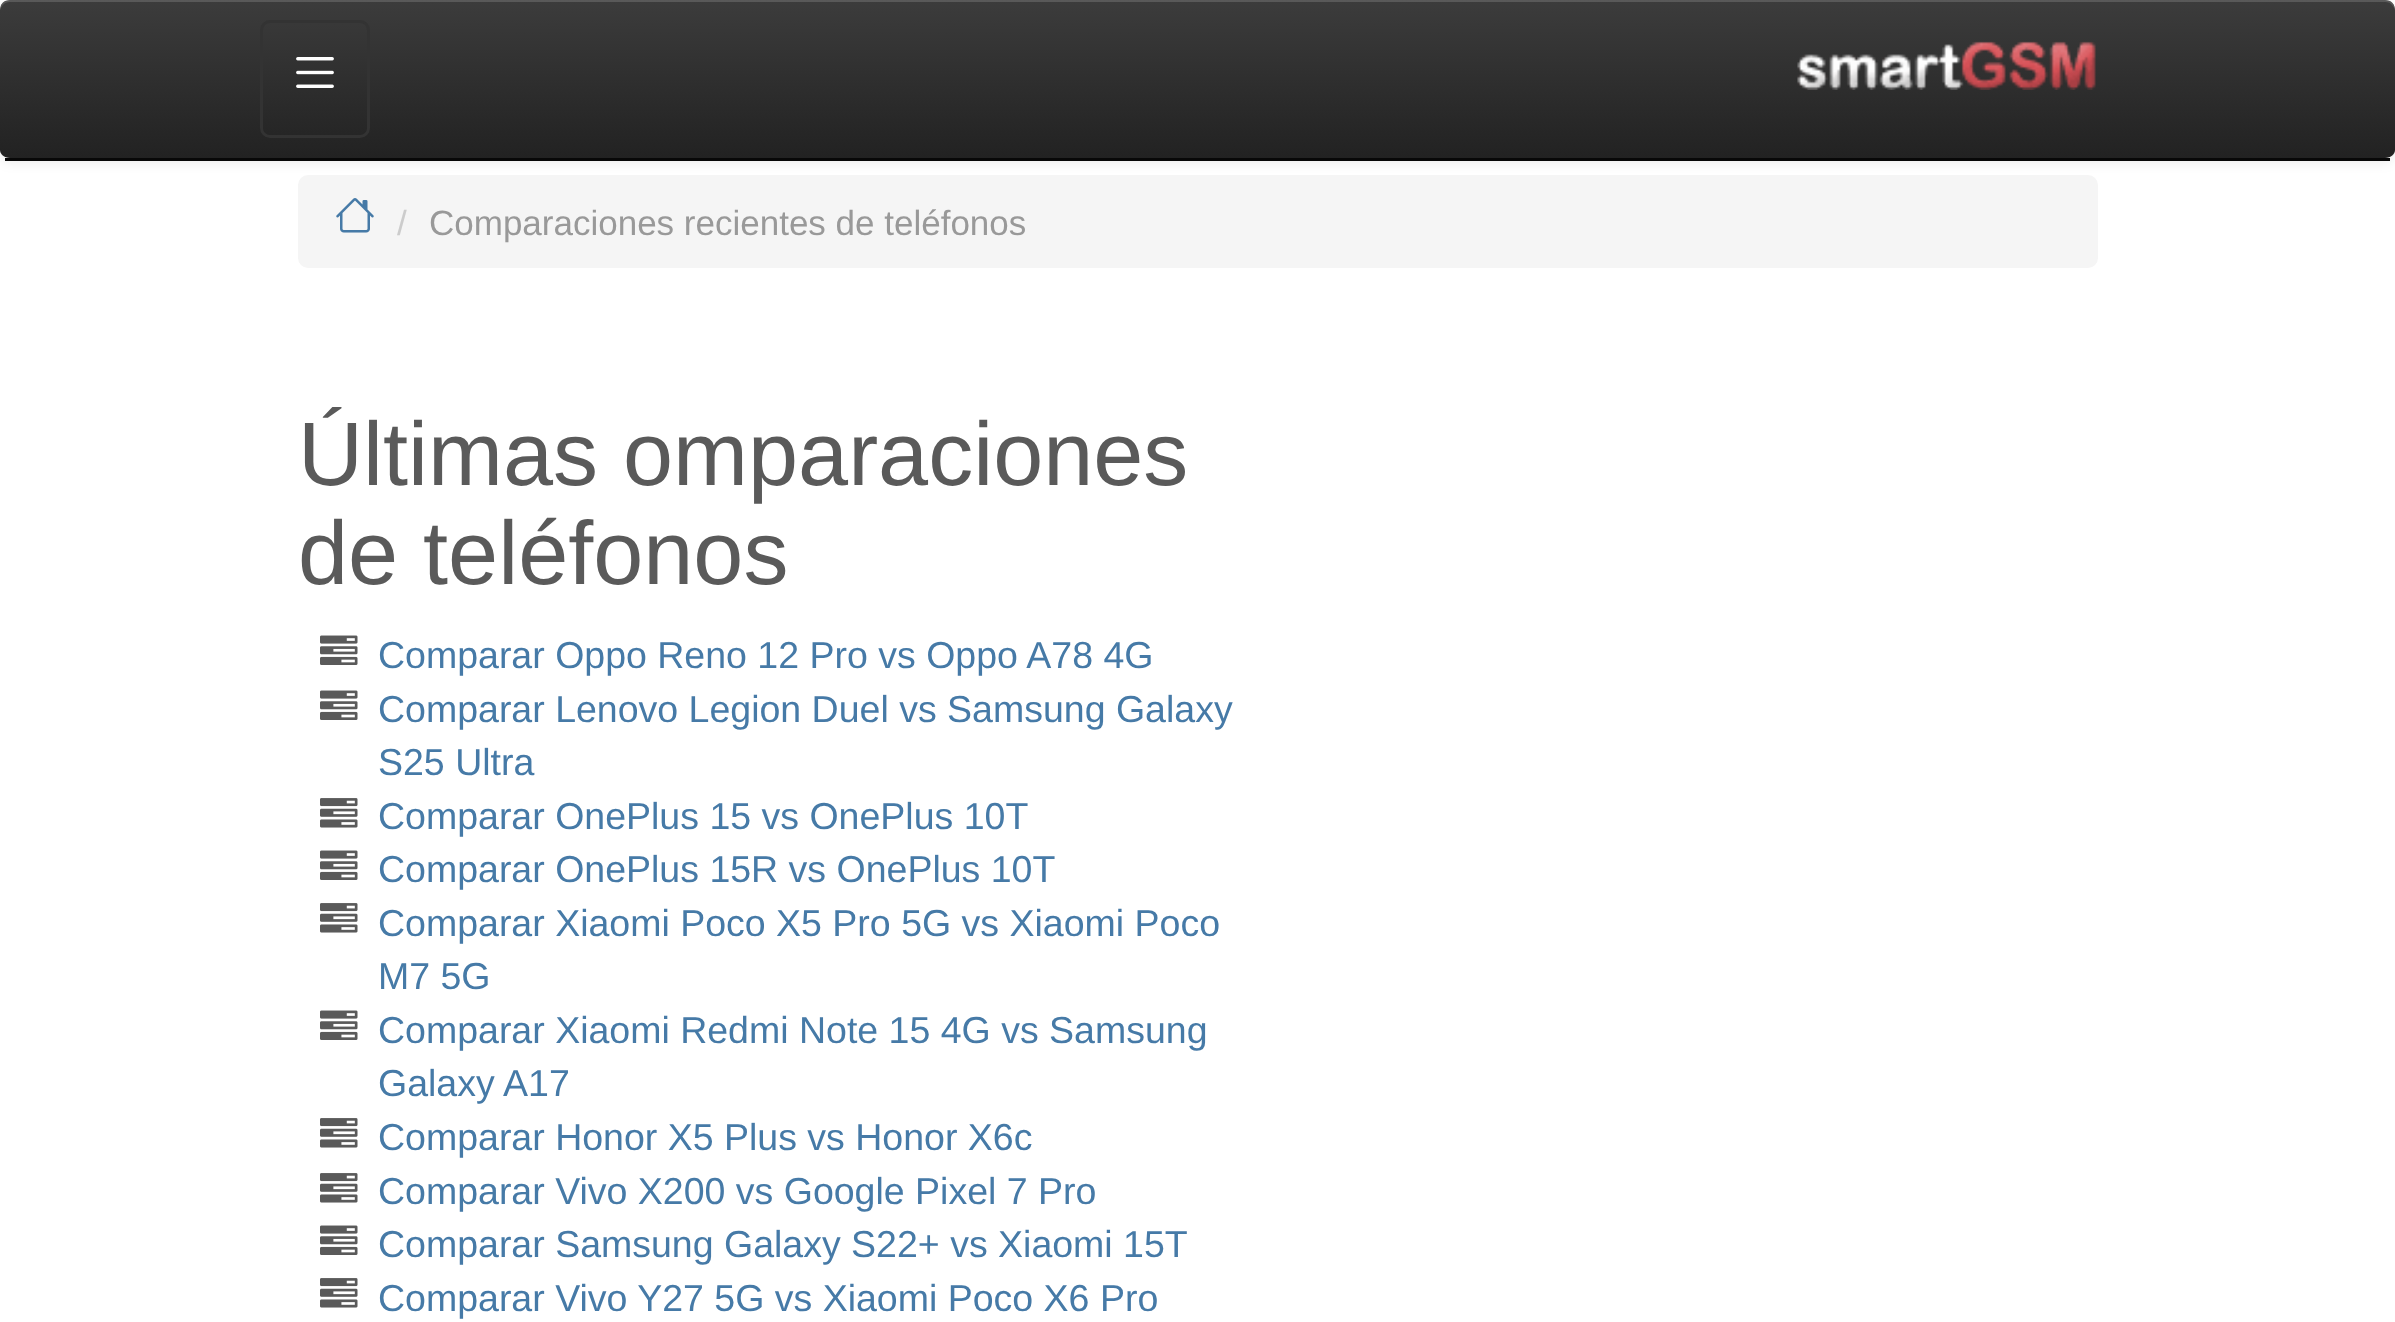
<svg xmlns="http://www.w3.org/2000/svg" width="2395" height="1322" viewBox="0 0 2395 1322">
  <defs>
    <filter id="blur1" x="-50%" y="-200%" width="200%" height="500%"><feGaussianBlur stdDeviation="6"/></filter>
    <linearGradient id="g1" gradientUnits="userSpaceOnUse" x1="1198" y1="0" x2="1198" y2="158"><stop offset="0" stop-color="#3c3c3c"/><stop offset="1" stop-color="#222222"/></linearGradient>
  </defs>
  <rect width="100%" height="100%" fill="#ffffff"/>
  <rect x="298" y="175" width="1800" height="93" rx="10" fill="#f5f5f5"/>
  <rect x="0" y="3" width="2395" height="160" rx="10" fill="#000000" fill-opacity="0.07" filter="url(#blur1)"/>
  <path d="M10 0H2385C2391 0 2395 4 2395 10V150C2395 154 2391 158 2385 158H10C4 158 0 154 0 150V10C0 4 4 0 10 0Z" fill="url(#g1)"/>
  <path d="M10 2H2385C2391 2 2395 7 2395 12C2395 6 2392 0 2385 0H10C3 0 0 6 0 12C0 7 4 2 10 2Z" fill="#ffffff" fill-opacity="0.15"/>
  <rect x="5" y="158" width="2385" height="3" fill="#080808"/>
  <rect x="261.5" y="21.5" width="107" height="115" rx="8.5" fill="none" stroke="#333333" stroke-width="3"/>
  <image x="296" y="57" width="38" height="31" href="img1.png"/>
  <image x="1797" y="41" width="299" height="49" href="img2.png"/>
  <image x="336" y="198" width="38" height="35" href="img3.png"/>
  <text x="397" y="235" font-family="Liberation Sans" font-size="35" fill="#cccccc">/</text>
  <text x="429" y="235" font-family="Liberation Sans" font-size="35" fill="#999999">Comparaciones recientes de teléfonos</text>
  <text x="298" y="485" font-family="Liberation Sans" font-size="90" fill="#5a5a5a">Últimas omparaciones</text>
  <text x="298" y="584" font-family="Liberation Sans" font-size="90" fill="#5a5a5a">de teléfonos</text>
  <image x="320" y="635" width="38" height="30" href="img4.png"/>
  <text x="378" y="668" font-family="Liberation Sans" font-size="37.5" fill="#467aa7">Comparar Oppo Reno 12 Pro vs Oppo A78 4G</text>
  <image x="320" y="690" width="38" height="30" href="img4.png"/>
  <text x="378" y="722" font-family="Liberation Sans" font-size="37.5" fill="#467aa7">Comparar Lenovo Legion Duel vs Samsung Galaxy</text>
  <text x="378" y="775" font-family="Liberation Sans" font-size="37.5" fill="#467aa7">S25 Ultra</text>
  <image x="320" y="798" width="38" height="30" href="img5.png"/>
  <text x="378" y="829" font-family="Liberation Sans" font-size="37.5" fill="#467aa7">Comparar OnePlus 15 vs OnePlus 10T</text>
  <image x="320" y="850" width="38" height="30" href="img4.png"/>
  <text x="378" y="882" font-family="Liberation Sans" font-size="37.5" fill="#467aa7">Comparar OnePlus 15R vs OnePlus 10T</text>
  <image x="320" y="903" width="38" height="30" href="img5.png"/>
  <text x="378" y="936" font-family="Liberation Sans" font-size="37.5" fill="#467aa7">Comparar Xiaomi Poco X5 Pro 5G vs Xiaomi Poco</text>
  <text x="378" y="989" font-family="Liberation Sans" font-size="37.5" fill="#467aa7">M7 5G</text>
  <image x="320" y="1010" width="38" height="30" href="img4.png"/>
  <text x="378" y="1043" font-family="Liberation Sans" font-size="37.5" fill="#467aa7">Comparar Xiaomi Redmi Note 15 4G vs Samsung</text>
  <text x="378" y="1096" font-family="Liberation Sans" font-size="37.5" fill="#467aa7">Galaxy A17</text>
  <image x="320" y="1118" width="38" height="30" href="img5.png"/>
  <text x="378" y="1150" font-family="Liberation Sans" font-size="37.5" fill="#467aa7">Comparar Honor X5 Plus vs Honor X6c</text>
  <image x="320" y="1173" width="38" height="30" href="img5.png"/>
  <text x="378" y="1204" font-family="Liberation Sans" font-size="37.5" fill="#467aa7">Comparar Vivo X200 vs Google Pixel 7 Pro</text>
  <image x="320" y="1225" width="38" height="30" href="img4.png"/>
  <text x="378" y="1257" font-family="Liberation Sans" font-size="37.5" fill="#467aa7">Comparar Samsung Galaxy S22+ vs Xiaomi 15T</text>
  <image x="320" y="1278" width="38" height="30" href="img5.png"/>
  <text x="378" y="1311" font-family="Liberation Sans" font-size="37.5" fill="#467aa7">Comparar Vivo Y27 5G vs Xiaomi Poco X6 Pro</text>
</svg>
